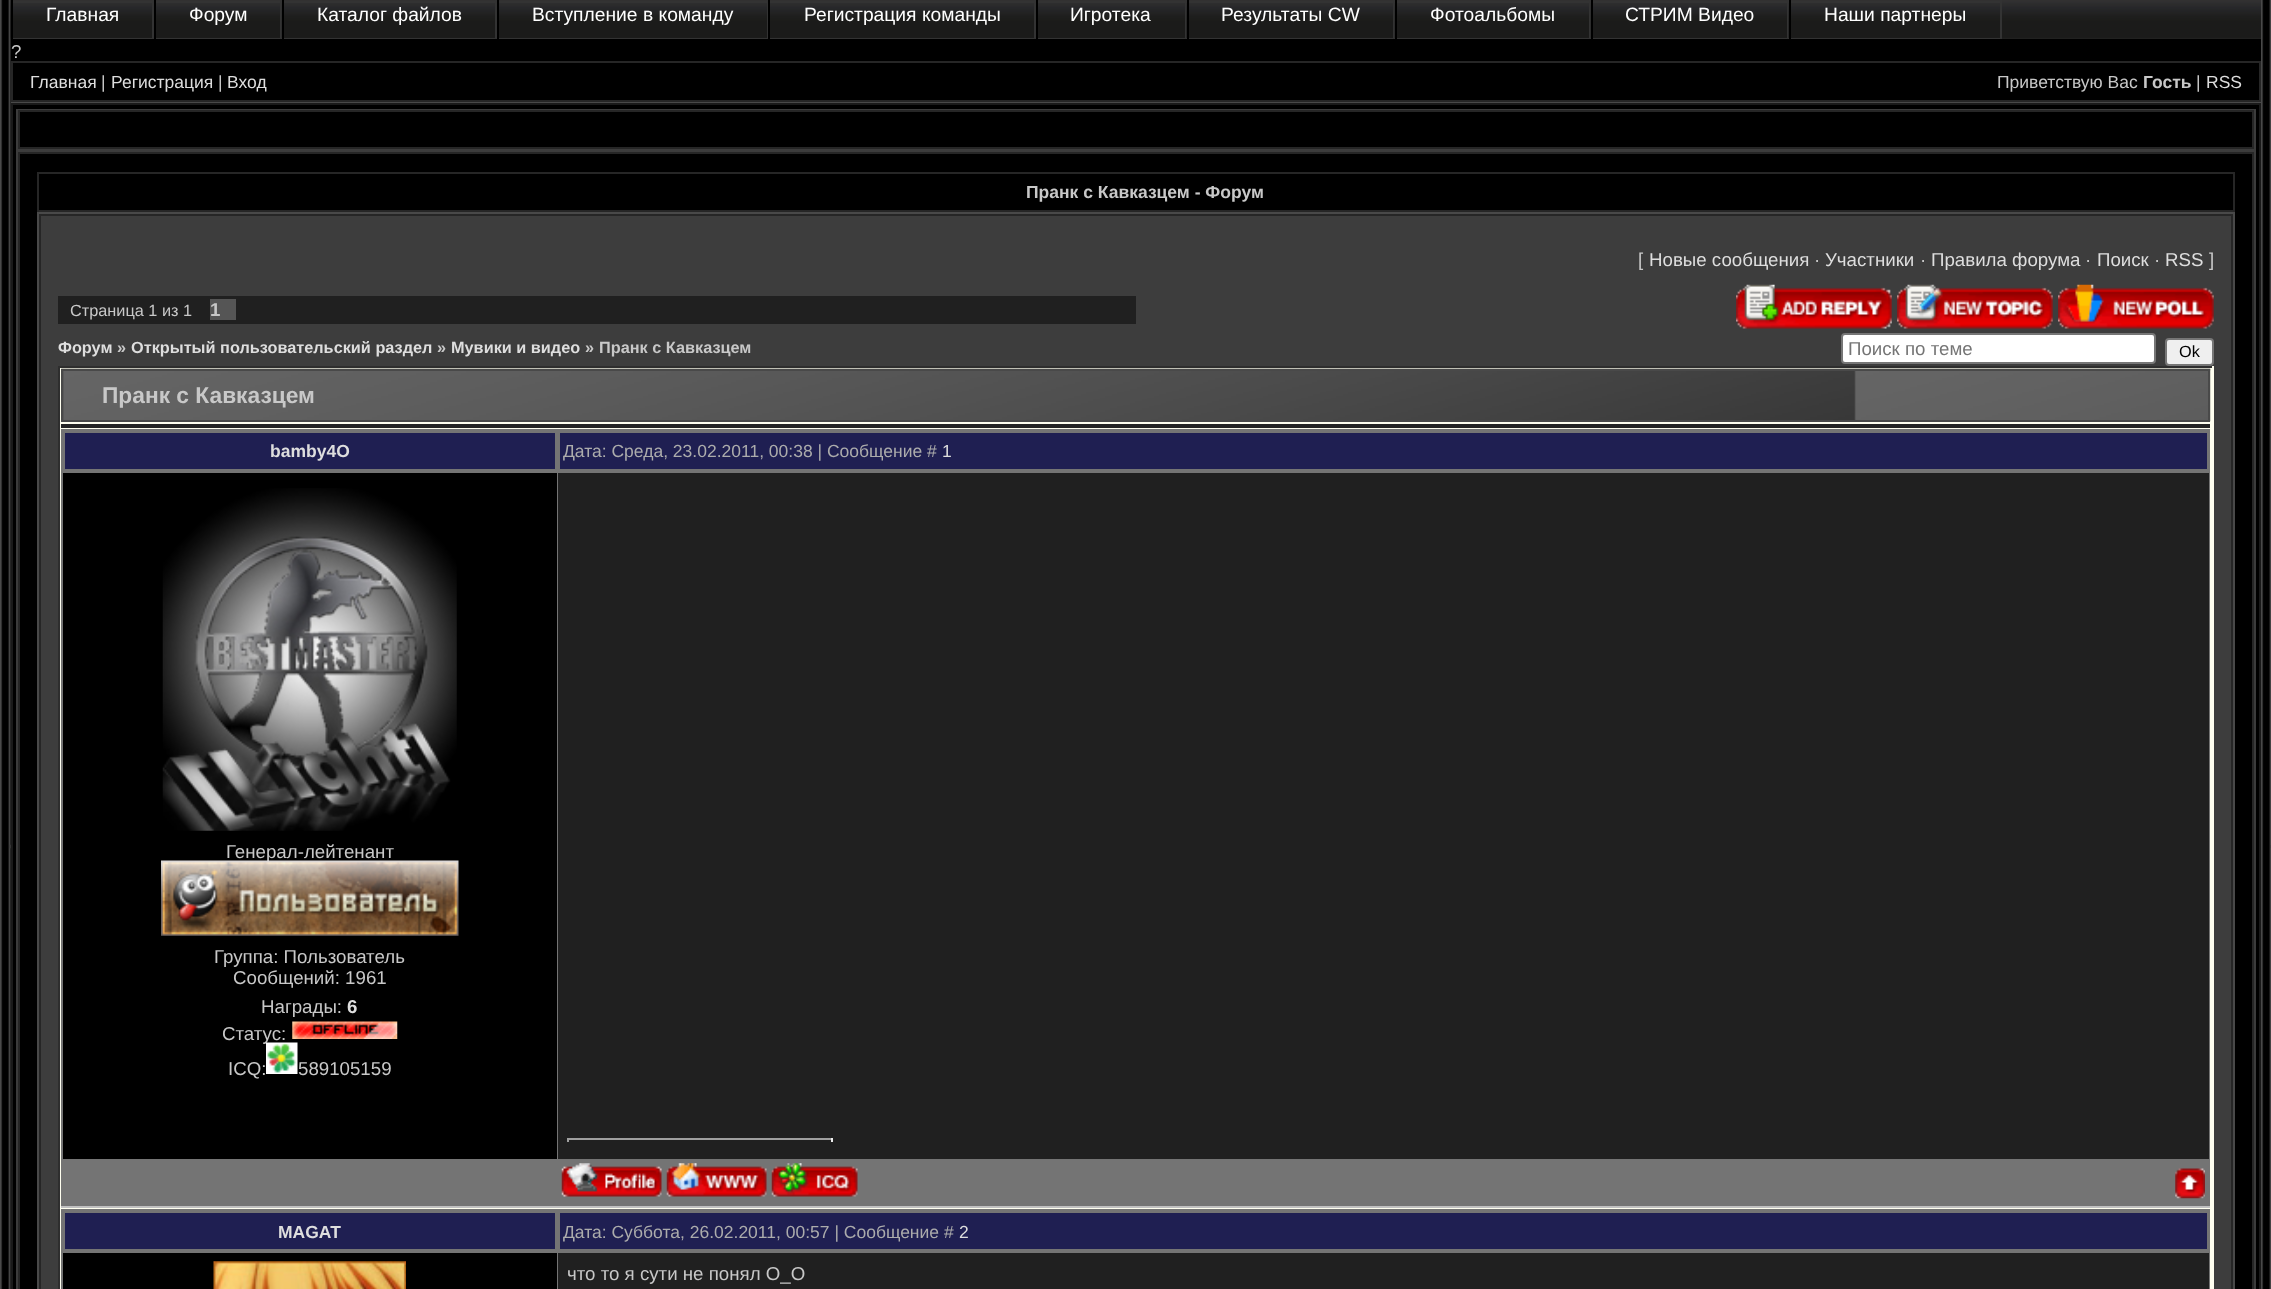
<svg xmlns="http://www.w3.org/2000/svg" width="2271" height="1289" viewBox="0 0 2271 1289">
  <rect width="100%" height="100%" fill="#000000"/>
  <image x="0" y="0" width="11" height="1289" href="img1.png"/>
  <image x="9" y="844" width="2" height="5" href="img2.png"/>
  <image x="10" y="0" width="2251" height="40" href="img3.png"/>
  <rect x="11" y="39" width="2250" height="1" fill="#000000"/>
  <rect x="13" y="1" width="139" height="38" fill="#333333"/>
  <image x="13" y="3" width="139" height="35" href="img4.png"/>
  <rect x="152" y="0" width="2" height="39" fill="#333333"/>
  <rect x="11" y="0" width="2" height="39" fill="#000000"/>
  <text x="46" y="21" font-family="Liberation Sans" font-size="19.25" fill="#ffffff">Главная</text>
  <rect x="156" y="1" width="124" height="38" fill="#333333"/>
  <image x="156" y="3" width="124" height="35" href="img5.png"/>
  <rect x="280" y="0" width="2" height="39" fill="#333333"/>
  <rect x="154" y="0" width="2" height="39" fill="#000000"/>
  <text x="189" y="21" font-family="Liberation Sans" font-size="19.25" fill="#ffffff">Форум</text>
  <rect x="284" y="1" width="211" height="38" fill="#333333"/>
  <image x="281" y="3" width="214" height="35" href="img6.png"/>
  <rect x="495" y="0" width="2" height="39" fill="#333333"/>
  <rect x="282" y="0" width="2" height="39" fill="#000000"/>
  <text x="317" y="21" font-family="Liberation Sans" font-size="19.25" fill="#ffffff">Каталог файлов</text>
  <rect x="499" y="1" width="268" height="38" fill="#333333"/>
  <image x="499" y="3" width="268" height="35" href="img7.png"/>
  <rect x="767" y="0" width="1" height="39" fill="#333333"/>
  <rect x="497" y="0" width="2" height="39" fill="#000000"/>
  <text x="532" y="21" font-family="Liberation Sans" font-size="19.25" fill="#ffffff">Вступление в команду</text>
  <rect x="770" y="1" width="264" height="38" fill="#333333"/>
  <image x="770" y="3" width="264" height="35" href="img8.png"/>
  <rect x="1034" y="0" width="2" height="39" fill="#333333"/>
  <rect x="768" y="0" width="2" height="39" fill="#000000"/>
  <text x="804" y="21" font-family="Liberation Sans" font-size="19.25" fill="#ffffff">Регистрация команды</text>
  <rect x="1038" y="1" width="147" height="38" fill="#333333"/>
  <image x="1038" y="3" width="147" height="35" href="img9.png"/>
  <rect x="1185" y="0" width="2" height="39" fill="#333333"/>
  <rect x="1036" y="0" width="2" height="39" fill="#000000"/>
  <text x="1070" y="21" font-family="Liberation Sans" font-size="19.25" fill="#ffffff">Игротека</text>
  <rect x="1189" y="1" width="204" height="38" fill="#333333"/>
  <image x="1186" y="3" width="207" height="35" href="img10.png"/>
  <rect x="1393" y="0" width="2" height="39" fill="#333333"/>
  <rect x="1187" y="0" width="2" height="39" fill="#000000"/>
  <text x="1221" y="21" font-family="Liberation Sans" font-size="19.25" fill="#ffffff">Результаты CW</text>
  <rect x="1397" y="1" width="192" height="38" fill="#333333"/>
  <image x="1394" y="3" width="195" height="35" href="img11.png"/>
  <rect x="1589" y="0" width="2" height="39" fill="#333333"/>
  <rect x="1395" y="0" width="2" height="39" fill="#000000"/>
  <text x="1430" y="21" font-family="Liberation Sans" font-size="19.25" fill="#ffffff">Фотоальбомы</text>
  <rect x="1593" y="1" width="194" height="38" fill="#333333"/>
  <image x="1590" y="3" width="197" height="35" href="img12.png"/>
  <rect x="1787" y="0" width="2" height="39" fill="#333333"/>
  <rect x="1591" y="0" width="2" height="39" fill="#000000"/>
  <text x="1625" y="21" font-family="Liberation Sans" font-size="19.25" fill="#ffffff">СТРИМ Видео</text>
  <rect x="1791" y="1" width="209" height="38" fill="#333333"/>
  <image x="1788" y="3" width="212" height="35" href="img13.png"/>
  <rect x="2000" y="0" width="2" height="39" fill="#333333"/>
  <rect x="1789" y="0" width="2" height="39" fill="#000000"/>
  <text x="1824" y="21" font-family="Liberation Sans" font-size="19.25" fill="#ffffff">Наши партнеры</text>
  <text x="11" y="58" font-family="Liberation Sans" font-size="18.7" fill="#c8c8c8">?</text>
  <rect x="12" y="62" width="2248" height="39" fill="none" stroke="#262626" stroke-width="2"/>
  <text x="30" y="88" font-family="Liberation Sans" font-size="17.5" fill="#dedede">Главная</text>
  <text x="101" y="88" font-family="Liberation Sans" font-size="17.5" fill="#c8c8c8">|</text>
  <text x="111" y="88" font-family="Liberation Sans" font-size="17.5" fill="#dedede">Регистрация</text>
  <text x="218" y="88" font-family="Liberation Sans" font-size="17.5" fill="#c8c8c8">|</text>
  <text x="227" y="88" font-family="Liberation Sans" font-size="17.5" fill="#dedede">Вход</text>
  <text x="1997" y="88" font-family="Liberation Sans" font-size="17.5" fill="#c8c8c8">Приветствую Вас</text>
  <text x="2143" y="88" font-family="Liberation Sans" font-size="17.5" font-weight="bold" fill="#c8c8c8">Гость</text>
  <text x="2196" y="88" font-family="Liberation Sans" font-size="17.5" fill="#c8c8c8">|</text>
  <text x="2206" y="88" font-family="Liberation Sans" font-size="17.5" fill="#dedede">RSS</text>
  <rect x="11" y="102" width="2250" height="1" fill="#494949"/>
  <rect x="12" y="104" width="2248" height="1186" fill="none" stroke="#1a1a1a" stroke-width="2"/>
  <rect x="17" y="110" width="2238" height="40" fill="none" stroke="#3c3c3c" stroke-width="2"/>
  <rect x="19" y="111" width="2234" height="37" fill="none" stroke="#262626" stroke-width="2"/>
  <rect x="17" y="152" width="2238" height="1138" fill="none" stroke="#3c3c3c" stroke-width="2"/>
  <rect x="19" y="153" width="2234" height="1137" fill="none" stroke="#262626" stroke-width="2"/>
  <rect x="38" y="173" width="2196" height="38" fill="none" stroke="#262626" stroke-width="2"/>
  <text x="1026" y="198" font-family="Liberation Sans" font-size="17.5" font-weight="bold" fill="#c8c8c8">Пранк с Кавказцем - Форум</text>
  <rect x="38" y="213" width="2196" height="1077" fill="none" stroke="#494949" stroke-width="2"/>
  <rect x="40" y="215" width="2192" height="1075" fill="#3d3d3d" stroke="#262626" stroke-width="2"/>
  <text x="1638" y="266" font-family="Liberation Sans" font-size="18.7" fill="#c8c8c8">[</text>
  <text x="1649" y="266" font-family="Liberation Sans" font-size="18.7" fill="#dedede">Новые сообщения</text>
  <text x="1814" y="266" font-family="Liberation Sans" font-size="18.7" fill="#c8c8c8">·</text>
  <text x="1825" y="266" font-family="Liberation Sans" font-size="18.7" fill="#dedede">Участники</text>
  <text x="1920" y="266" font-family="Liberation Sans" font-size="18.7" fill="#c8c8c8">·</text>
  <text x="1931" y="266" font-family="Liberation Sans" font-size="18.7" fill="#dedede">Правила форума</text>
  <text x="2085" y="266" font-family="Liberation Sans" font-size="18.7" fill="#c8c8c8">·</text>
  <text x="2097" y="266" font-family="Liberation Sans" font-size="18.7" fill="#dedede">Поиск</text>
  <text x="2154" y="266" font-family="Liberation Sans" font-size="18.7" fill="#c8c8c8">·</text>
  <text x="2165" y="266" font-family="Liberation Sans" font-size="18.7" fill="#dedede">RSS</text>
  <text x="2209" y="266" font-family="Liberation Sans" font-size="18.7" fill="#c8c8c8">]</text>
  <rect x="58" y="296" width="1078" height="28" fill="#202020"/>
  <text x="70" y="316" font-family="Liberation Sans" font-size="16.3" fill="#c8c8c8">Страница 1 из 1</text>
  <rect x="210" y="299" width="26" height="21" fill="#555555"/>
  <text x="210" y="316" font-family="Liberation Sans" font-size="18.7" font-weight="bold" fill="#c8c8c8">1</text>
  <image x="1736" y="284" width="156" height="45" href="img14.png"/>
  <image x="1897" y="284" width="156" height="45" href="img15.png"/>
  <image x="2058" y="284" width="156" height="45" href="img16.png"/>
  <text x="58" y="353" font-family="Liberation Sans" font-size="16.3" font-weight="bold" fill="#dedede">Форум</text>
  <text x="117" y="353" font-family="Liberation Sans" font-size="16.3" font-weight="bold" fill="#c8c8c8">»</text>
  <text x="131" y="353" font-family="Liberation Sans" font-size="16.3" font-weight="bold" fill="#dedede">Открытый пользовательский раздел</text>
  <text x="437" y="353" font-family="Liberation Sans" font-size="16.3" font-weight="bold" fill="#c8c8c8">»</text>
  <text x="451" y="353" font-family="Liberation Sans" font-size="16.3" font-weight="bold" fill="#dedede">Мувики и видео</text>
  <text x="585" y="353" font-family="Liberation Sans" font-size="16.3" font-weight="bold" fill="#c8c8c8">»</text>
  <text x="599" y="353" font-family="Liberation Sans" font-size="16.3" font-weight="bold" fill="#c8c8c8">Пранк с Кавказцем</text>
  <rect x="1842" y="334" width="313" height="29" rx="3" fill="#ffffff" stroke="#767676" stroke-width="2"/>
  <text x="1848" y="355" font-family="Liberation Sans" font-size="18.7" fill="#757575">Поиск по теме</text>
  <rect x="2166" y="339" width="47" height="26" rx="3" fill="#efefef" stroke="#767676" stroke-width="2"/>
  <text x="2179" y="357" font-family="Liberation Sans" font-size="16.3" fill="#000000">Ok</text>
  <rect x="58" y="366" width="2156" height="2" fill="#2e2e2e"/>
  <rect x="2212" y="366" width="2" height="923" fill="#fffff0"/>
  <rect x="58" y="366" width="2" height="923" fill="#2e2e2e"/>
  <rect x="60" y="368" width="2152" height="921" fill="#fffff0"/>
  <image x="61" y="368" width="2150" height="54" href="img17.png"/>
  <rect x="62" y="370" width="2147" height="51" fill="none" stroke="#494949" stroke-width="2"/>
  <text x="102" y="403" font-family="Liberation Sans" font-size="22.75" font-weight="bold" fill="#c8c8c8">Пранк с Кавказцем</text>
  <rect x="61" y="424" width="2149" height="4" fill="#252525"/>
  <rect x="61" y="1206" width="2149" height="2" fill="#c0c0c0"/>
  <rect x="61" y="429" width="2149" height="777" fill="#747474"/>
  <rect x="65" y="433" width="490" height="36" fill="#1f1f52"/>
  <text x="270" y="457" font-family="Liberation Sans" font-size="17.5" font-weight="bold" fill="#dedede">bamby4O</text>
  <rect x="560" y="433" width="1647" height="36" fill="#1f1f52"/>
  <text x="563" y="457" font-family="Liberation Sans" font-size="17.5" fill="#acacac">Дата: Среда, 23.02.2011, 00:38 | Сообщение #</text>
  <text x="942" y="457" font-family="Liberation Sans" font-size="17.5" fill="#dedede">1</text>
  <rect x="63" y="473" width="494" height="686" fill="#000000"/>
  <image x="162" y="488" width="295" height="343" href="img18.png"/>
  <text x="226" y="858" font-family="Liberation Sans" font-size="18.7" fill="#c8c8c8">Генерал-лейтенант</text>
  <image x="161" y="860" width="298" height="76" href="img19.png"/>
  <text x="214" y="963" font-family="Liberation Sans" font-size="18.7" fill="#c8c8c8">Группа: Пользователь</text>
  <text x="233" y="984" font-family="Liberation Sans" font-size="18.7" fill="#c8c8c8">Сообщений: 1961</text>
  <text x="261" y="1013" font-family="Liberation Sans" font-size="18.7" fill="#c8c8c8">Награды:</text>
  <text x="347" y="1013" font-family="Liberation Sans" font-size="18.7" font-weight="bold" fill="#dedede">6</text>
  <text x="222" y="1040" font-family="Liberation Sans" font-size="18.7" fill="#c8c8c8">Статус:</text>
  <image x="292" y="1021" width="106" height="18" href="img20.png"/>
  <text x="228" y="1075" font-family="Liberation Sans" font-size="18.7" fill="#c8c8c8">ICQ:</text>
  <image x="266" y="1042" width="32" height="32" href="img21.png"/>
  <text x="298" y="1075" font-family="Liberation Sans" font-size="18.7" fill="#c8c8c8">589105159</text>
  <rect x="558" y="473" width="1651" height="686" fill="#202020"/>
  <rect x="567" y="1138" width="266" height="2" fill="#9f9f9f"/>
  <rect x="831" y="1138" width="2" height="4" fill="#eeeeee"/>
  <rect x="567" y="1138" width="2" height="4" fill="#9f9f9f"/>
  <image x="561" y="1163" width="101" height="34" href="img22.png"/>
  <image x="666" y="1163" width="101" height="34" href="img23.png"/>
  <image x="771" y="1163" width="87" height="34" href="img24.png"/>
  <image x="2175" y="1168" width="30" height="31" href="img25.png"/>
  <rect x="61" y="1209" width="2149" height="80" fill="#747474"/>
  <rect x="65" y="1213" width="490" height="36" fill="#1f1f52"/>
  <text x="278" y="1238" font-family="Liberation Sans" font-size="17.5" font-weight="bold" fill="#dedede">MAGAT</text>
  <rect x="560" y="1213" width="1647" height="36" fill="#1f1f52"/>
  <text x="563" y="1238" font-family="Liberation Sans" font-size="17.5" fill="#acacac">Дата: Суббота, 26.02.2011, 00:57 | Сообщение #</text>
  <text x="959" y="1238" font-family="Liberation Sans" font-size="17.5" fill="#dedede">2</text>
  <rect x="63" y="1253" width="494" height="36" fill="#000000"/>
  <image x="213" y="1261" width="193" height="28" href="img26.png"/>
  <rect x="558" y="1253" width="1651" height="36" fill="#202020"/>
  <text x="567" y="1280" font-family="Liberation Sans" font-size="18.7" fill="#c8c8c8">что то я сути не понял О_О</text>
  <image x="2261" y="0" width="10" height="1289" href="img27.png"/>
  <rect x="2270" y="845" width="1" height="3" fill="#3f3f3f"/>
</svg>
